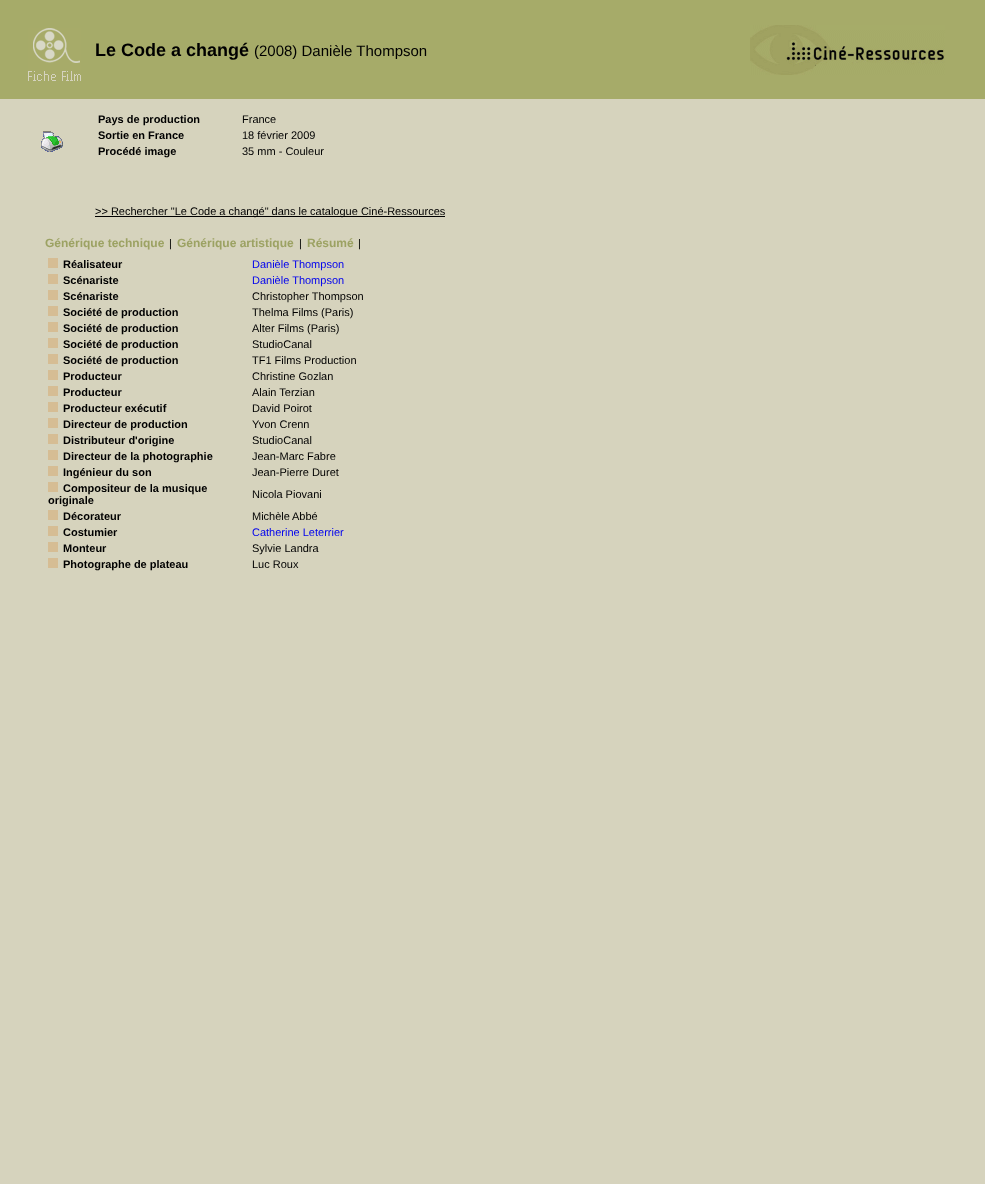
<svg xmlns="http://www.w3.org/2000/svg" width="985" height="1184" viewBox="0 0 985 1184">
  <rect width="100%" height="100%" fill="#d6d3bd"/>
  <rect x="0" y="0" width="985" height="99" fill="#a6ab69"/>
  <image x="28" y="28" width="53" height="53" href="img1.png"/>
  <text x="95" y="56" font-family="Liberation Sans" font-size="18" font-weight="bold" fill="#000000">Le Code a changé</text>
  <text x="254" y="56" font-family="Liberation Sans" font-size="15" fill="#000000">(2008) Danièle Thompson</text>
  <image x="750" y="25" width="195" height="50" href="img2.png"/>
  <image x="41" y="131" width="22" height="21" href="img3.png"/>
  <text x="98" y="123" font-family="Liberation Sans" font-size="11" font-weight="bold" fill="#000000">Pays de production</text>
  <text x="242" y="123" font-family="Liberation Sans" font-size="11" fill="#000000">France</text>
  <text x="98" y="139" font-family="Liberation Sans" font-size="11" font-weight="bold" fill="#000000">Sortie en France</text>
  <text x="242" y="139" font-family="Liberation Sans" font-size="11" fill="#000000">18 février 2009</text>
  <text x="98" y="155" font-family="Liberation Sans" font-size="11" font-weight="bold" fill="#000000">Procédé image</text>
  <text x="242" y="155" font-family="Liberation Sans" font-size="11" fill="#000000">35 mm - Couleur</text>
  <rect x="95" y="216" width="350" height="1" fill="#000000"/>
  <text x="95" y="215" font-family="Liberation Sans" font-size="11" fill="#000000">&gt;&gt; Rechercher "Le Code a changé" dans le catalogue Ciné-Ressources</text>
  <text x="45" y="247" font-family="Liberation Sans" font-size="12" font-weight="bold" fill="#9ca263">Générique technique</text>
  <text x="169" y="247" font-family="Liberation Sans" font-size="11" fill="#000000">|</text>
  <text x="177" y="247" font-family="Liberation Sans" font-size="12" font-weight="bold" fill="#9ca263">Générique artistique</text>
  <text x="299" y="247" font-family="Liberation Sans" font-size="11" fill="#000000">|</text>
  <text x="307" y="247" font-family="Liberation Sans" font-size="12" font-weight="bold" fill="#9ca263">Résumé</text>
  <text x="358" y="247" font-family="Liberation Sans" font-size="11" fill="#000000">|</text>
  <rect x="48" y="258" width="10" height="10" fill="#d6bd94"/>
  <text x="63" y="268" font-family="Liberation Sans" font-size="11" font-weight="bold" fill="#000000">Réalisateur</text>
  <text x="252" y="268" font-family="Liberation Sans" font-size="11" fill="#0000ee">Danièle Thompson</text>
  <rect x="48" y="274" width="10" height="10" fill="#d6bd94"/>
  <text x="63" y="284" font-family="Liberation Sans" font-size="11" font-weight="bold" fill="#000000">Scénariste</text>
  <text x="252" y="284" font-family="Liberation Sans" font-size="11" fill="#0000ee">Danièle Thompson</text>
  <rect x="48" y="290" width="10" height="10" fill="#d6bd94"/>
  <text x="63" y="300" font-family="Liberation Sans" font-size="11" font-weight="bold" fill="#000000">Scénariste</text>
  <text x="252" y="300" font-family="Liberation Sans" font-size="11" fill="#000000">Christopher Thompson</text>
  <rect x="48" y="306" width="10" height="10" fill="#d6bd94"/>
  <text x="63" y="316" font-family="Liberation Sans" font-size="11" font-weight="bold" fill="#000000">Société de production</text>
  <text x="252" y="316" font-family="Liberation Sans" font-size="11" fill="#000000">Thelma Films (Paris)</text>
  <rect x="48" y="322" width="10" height="10" fill="#d6bd94"/>
  <text x="63" y="332" font-family="Liberation Sans" font-size="11" font-weight="bold" fill="#000000">Société de production</text>
  <text x="252" y="332" font-family="Liberation Sans" font-size="11" fill="#000000">Alter Films (Paris)</text>
  <rect x="48" y="338" width="10" height="10" fill="#d6bd94"/>
  <text x="63" y="348" font-family="Liberation Sans" font-size="11" font-weight="bold" fill="#000000">Société de production</text>
  <text x="252" y="348" font-family="Liberation Sans" font-size="11" fill="#000000">StudioCanal</text>
  <rect x="48" y="354" width="10" height="10" fill="#d6bd94"/>
  <text x="63" y="364" font-family="Liberation Sans" font-size="11" font-weight="bold" fill="#000000">Société de production</text>
  <text x="252" y="364" font-family="Liberation Sans" font-size="11" fill="#000000">TF1 Films Production</text>
  <rect x="48" y="370" width="10" height="10" fill="#d6bd94"/>
  <text x="63" y="380" font-family="Liberation Sans" font-size="11" font-weight="bold" fill="#000000">Producteur</text>
  <text x="252" y="380" font-family="Liberation Sans" font-size="11" fill="#000000">Christine Gozlan</text>
  <rect x="48" y="386" width="10" height="10" fill="#d6bd94"/>
  <text x="63" y="396" font-family="Liberation Sans" font-size="11" font-weight="bold" fill="#000000">Producteur</text>
  <text x="252" y="396" font-family="Liberation Sans" font-size="11" fill="#000000">Alain Terzian</text>
  <rect x="48" y="402" width="10" height="10" fill="#d6bd94"/>
  <text x="63" y="412" font-family="Liberation Sans" font-size="11" font-weight="bold" fill="#000000">Producteur exécutif</text>
  <text x="252" y="412" font-family="Liberation Sans" font-size="11" fill="#000000">David Poirot</text>
  <rect x="48" y="418" width="10" height="10" fill="#d6bd94"/>
  <text x="63" y="428" font-family="Liberation Sans" font-size="11" font-weight="bold" fill="#000000">Directeur de production</text>
  <text x="252" y="428" font-family="Liberation Sans" font-size="11" fill="#000000">Yvon Crenn</text>
  <rect x="48" y="434" width="10" height="10" fill="#d6bd94"/>
  <text x="63" y="444" font-family="Liberation Sans" font-size="11" font-weight="bold" fill="#000000">Distributeur d'origine</text>
  <text x="252" y="444" font-family="Liberation Sans" font-size="11" fill="#000000">StudioCanal</text>
  <rect x="48" y="450" width="10" height="10" fill="#d6bd94"/>
  <text x="63" y="460" font-family="Liberation Sans" font-size="11" font-weight="bold" fill="#000000">Directeur de la photographie</text>
  <text x="252" y="460" font-family="Liberation Sans" font-size="11" fill="#000000">Jean-Marc Fabre</text>
  <rect x="48" y="466" width="10" height="10" fill="#d6bd94"/>
  <text x="63" y="476" font-family="Liberation Sans" font-size="11" font-weight="bold" fill="#000000">Ingénieur du son</text>
  <text x="252" y="476" font-family="Liberation Sans" font-size="11" fill="#000000">Jean-Pierre Duret</text>
  <rect x="48" y="482" width="10" height="10" fill="#d6bd94"/>
  <text x="63" y="492" font-family="Liberation Sans" font-size="11" font-weight="bold" fill="#000000">Compositeur de la musique</text>
  <text x="48" y="504" font-family="Liberation Sans" font-size="11" font-weight="bold" fill="#000000">originale</text>
  <text x="252" y="498" font-family="Liberation Sans" font-size="11" fill="#000000">Nicola Piovani</text>
  <rect x="48" y="510" width="10" height="10" fill="#d6bd94"/>
  <text x="63" y="520" font-family="Liberation Sans" font-size="11" font-weight="bold" fill="#000000">Décorateur</text>
  <text x="252" y="520" font-family="Liberation Sans" font-size="11" fill="#000000">Michèle</text>
  <text x="292" y="520" font-family="Liberation Sans" font-size="11" fill="#000000">Abbé</text>
  <rect x="48" y="526" width="10" height="10" fill="#d6bd94"/>
  <text x="63" y="536" font-family="Liberation Sans" font-size="11" font-weight="bold" fill="#000000">Costumier</text>
  <text x="252" y="536" font-family="Liberation Sans" font-size="11" fill="#0000ee">Catherine Leterrier</text>
  <rect x="48" y="542" width="10" height="10" fill="#d6bd94"/>
  <text x="63" y="552" font-family="Liberation Sans" font-size="11" font-weight="bold" fill="#000000">Monteur</text>
  <text x="252" y="552" font-family="Liberation Sans" font-size="11" fill="#000000">Sylvie Landra</text>
  <rect x="48" y="558" width="10" height="10" fill="#d6bd94"/>
  <text x="63" y="568" font-family="Liberation Sans" font-size="11" font-weight="bold" fill="#000000">Photographe de plateau</text>
  <text x="252" y="568" font-family="Liberation Sans" font-size="11" fill="#000000">Luc Roux</text>
</svg>
